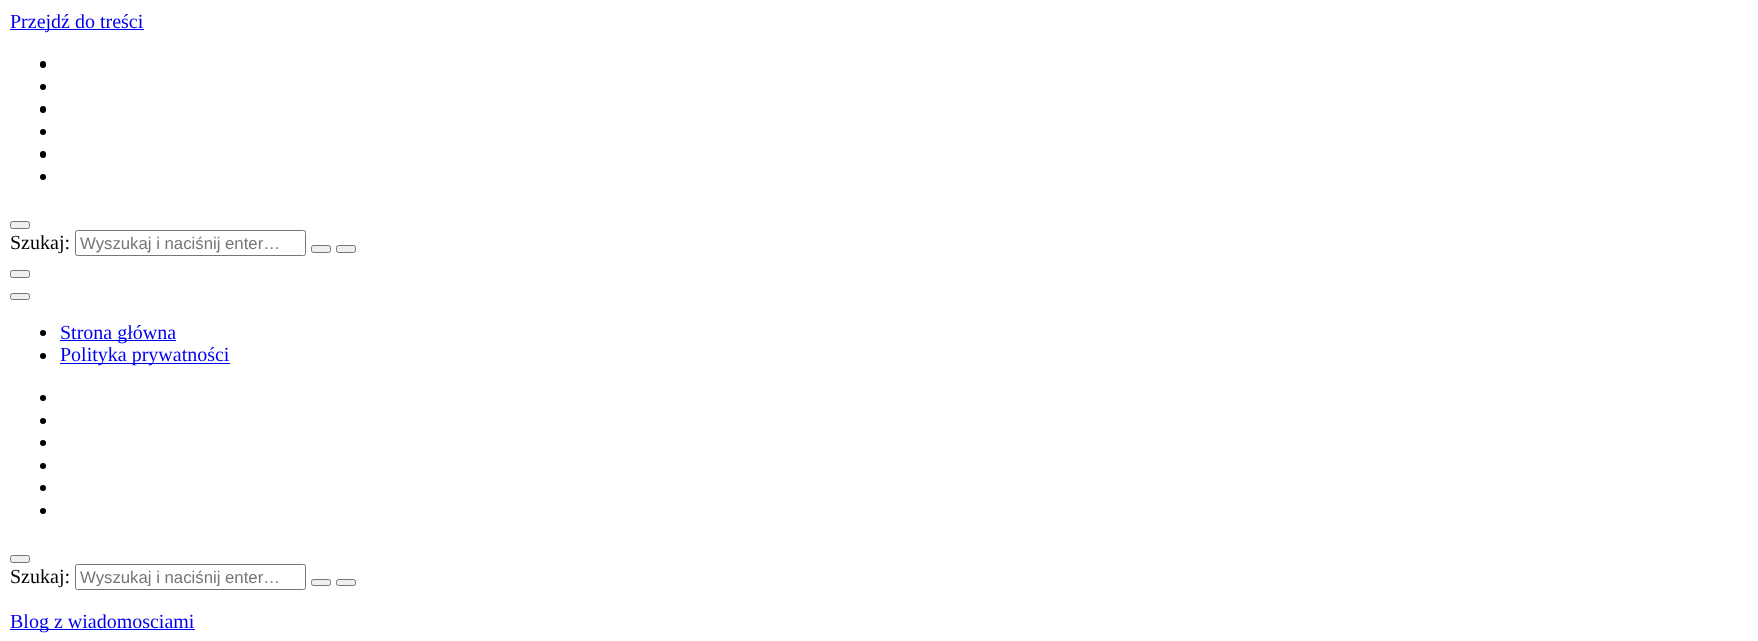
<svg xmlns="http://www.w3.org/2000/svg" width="1758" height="641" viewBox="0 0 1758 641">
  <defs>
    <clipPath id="clip1"><rect x="80" y="568" width="221" height="18"/></clipPath>
  </defs>
  <rect width="100%" height="100%" fill="#ffffff"/>
  <rect x="10" y="29" width="134" height="1" fill="#0000ee"/>
  <text x="10" y="28" font-family="Liberation Serif" font-size="20" fill="#0000ee">Przejdź do treści</text>
  <rect x="40" y="61" width="6" height="7" rx="3" fill="#000000"/>
  <circle cx="43" cy="87" r="3" fill="#000000"/>
  <rect x="40" y="106" width="6" height="7" rx="3" fill="#000000"/>
  <circle cx="43" cy="132" r="3" fill="#000000"/>
  <rect x="40" y="151" width="6" height="7" rx="3" fill="#000000"/>
  <circle cx="43" cy="177" r="3" fill="#000000"/>
  <rect x="10.5" y="221.5" width="19" height="7" rx="2" fill="#efefef" stroke="#767676"/>
  <text x="10" y="249" font-family="Liberation Serif" font-size="20" fill="#000000">Szukaj:</text>
  <rect x="75.5" y="230.5" width="230" height="25" rx="2" fill="none" stroke="#767676"/>
  <text x="80" y="249" font-family="Liberation Sans" font-size="16.75" fill="#757575">Wyszukaj i naciśnij enter…</text>
  <rect x="311.5" y="245.5" width="19" height="7" rx="2" fill="#efefef" stroke="#767676"/>
  <rect x="336.5" y="245.5" width="19" height="7" rx="2" fill="#efefef" stroke="#767676"/>
  <rect x="10.5" y="270.5" width="19" height="7" rx="2" fill="#efefef" stroke="#767676"/>
  <rect x="10.5" y="293.5" width="19" height="6" rx="2" fill="#efefef" stroke="#767676"/>
  <circle cx="43" cy="333" r="3" fill="#000000"/>
  <rect x="60" y="340" width="116" height="1" fill="#0000ee"/>
  <text x="60" y="339" font-family="Liberation Serif" font-size="20" fill="#0000ee">Strona główna</text>
  <circle cx="43" cy="356" r="3" fill="#000000"/>
  <rect x="60" y="363" width="170" height="1" fill="#0000ee"/>
  <text x="60" y="361" font-family="Liberation Serif" font-size="20" fill="#0000ee">Polityka prywatności</text>
  <circle cx="43" cy="398" r="3" fill="#000000"/>
  <circle cx="43" cy="421" r="3" fill="#000000"/>
  <circle cx="43" cy="443" r="3" fill="#000000"/>
  <circle cx="43" cy="466" r="3" fill="#000000"/>
  <circle cx="43" cy="488" r="3" fill="#000000"/>
  <circle cx="43" cy="511" r="3" fill="#000000"/>
  <rect x="10.5" y="555.5" width="19" height="7" rx="2" fill="#efefef" stroke="#767676"/>
  <text x="10" y="583" font-family="Liberation Serif" font-size="20" fill="#000000">Szukaj:</text>
  <rect x="75.5" y="564.5" width="230" height="25" rx="2" fill="none" stroke="#767676"/>
  <g clip-path="url(#clip1)">
    <text x="80" y="583" font-family="Liberation Sans" font-size="16.75" fill="#757575">Wyszukaj i naciśnij enter…</text>
  </g>
  <rect x="311.5" y="579.5" width="19" height="6" rx="2" fill="#efefef" stroke="#767676"/>
  <rect x="336.5" y="579.5" width="19" height="6" rx="2" fill="#efefef" stroke="#767676"/>
  <rect x="10" y="629" width="185" height="1" fill="#0000ee"/>
  <text x="10" y="628" font-family="Liberation Serif" font-size="20" fill="#0000ee">Blog z wiadomosciami</text>
</svg>
